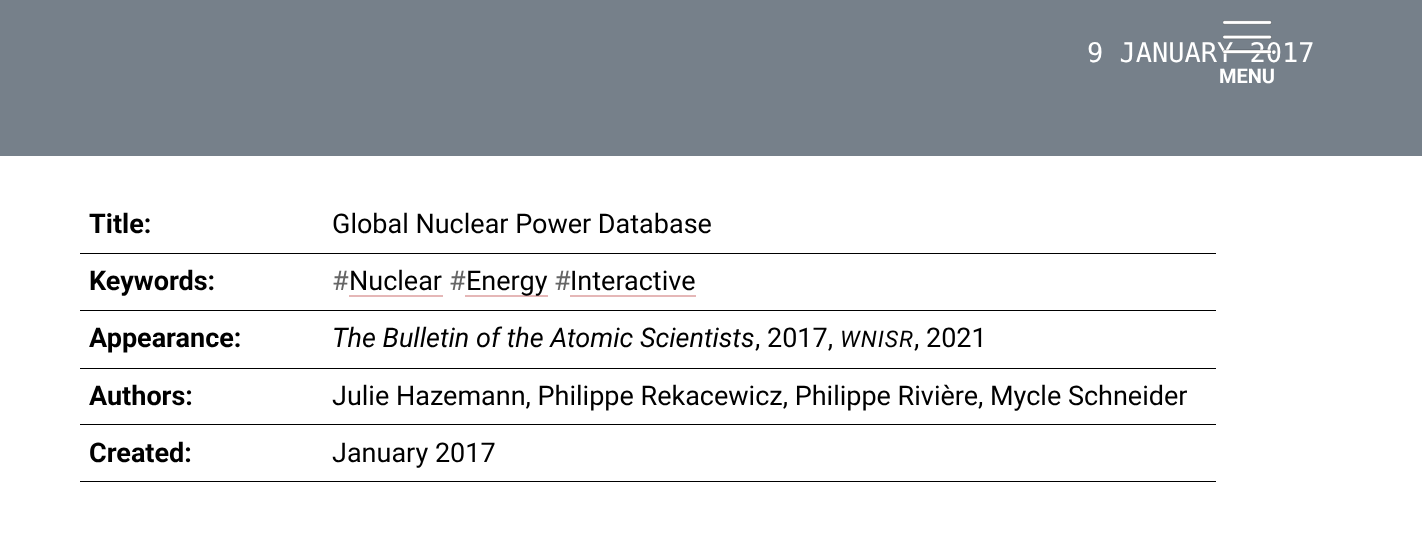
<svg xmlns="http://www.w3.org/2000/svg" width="1422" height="536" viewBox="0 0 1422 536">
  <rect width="100%" height="100%" fill="#ffffff"/>
  <rect x="0" y="0" width="1422" height="156" fill="#76808a"/>
  <text x="1087" y="62" font-family="DejaVu Sans Mono" font-size="27" fill="#ffffff">9 JANUARY 2017</text>
  <text x="89" y="233" font-family="Roboto" font-size="27" font-weight="bold" fill="#000000">Title:</text>
  <rect x="80" y="253" width="1136" height="1" fill="#000000"/>
  <text x="332" y="233" font-family="Roboto" font-size="27" fill="#000000">Global Nuclear Power Database</text>
  <text x="89" y="290" font-family="Roboto" font-size="27" font-weight="bold" fill="#000000">Keywords:</text>
  <rect x="80" y="310" width="1136" height="1" fill="#000000"/>
  <text x="332" y="290" font-family="Roboto" font-size="27" fill="#666666">#</text>
  <rect x="349" y="295" width="94" height="2" fill="#e5b7b7"/>
  <text x="349" y="290" font-family="Roboto" font-size="27" fill="#000000">Nuclear</text>
  <text x="449" y="290" font-family="Roboto" font-size="27" fill="#666666">#</text>
  <rect x="465" y="295" width="83" height="2" fill="#e5b7b7"/>
  <text x="466" y="290" font-family="Roboto" font-size="27" fill="#000000">Energy</text>
  <text x="554" y="290" font-family="Roboto" font-size="27" fill="#666666">#</text>
  <text x="570" y="290" font-family="Roboto" font-size="27" fill="#000000">Interactive</text>
  <rect x="570" y="295" width="126" height="2" fill="#e5b7b7"/>
  <text x="89" y="347" font-family="Roboto" font-size="27" font-weight="bold" fill="#000000">Appearance:</text>
  <rect x="80" y="368" width="1136" height="1" fill="#000000"/>
  <text x="332" y="347" font-family="Roboto" font-size="27" font-style="italic" fill="#000000">The Bulletin of the Atomic Scientists</text>
  <text x="755" y="347" font-family="Roboto" font-size="27" fill="#000000">, 2017,</text>
  <text x="840" y="347" font-family="Roboto" font-size="23" font-style="italic" letter-spacing="1" fill="#000000">WNISR</text>
  <text x="914" y="347" font-family="Roboto" font-size="27" fill="#000000">, 2021</text>
  <text x="89" y="405" font-family="Roboto" font-size="27" font-weight="bold" fill="#000000">Authors:</text>
  <rect x="80" y="424" width="1136" height="1" fill="#000000"/>
  <text x="332" y="405" font-family="Roboto" font-size="27" fill="#000000">Julie Hazemann, Philippe Rekacewicz, Philippe Rivière, Mycle Schneider</text>
  <text x="89" y="462" font-family="Roboto" font-size="27" font-weight="bold" fill="#000000">Created:</text>
  <rect x="80" y="481" width="1136" height="1" fill="#000000"/>
  <text x="332" y="462" font-family="Roboto" font-size="27" fill="#000000">January 2017</text>
  <image x="1223" y="20" width="49" height="34" href="img1.png"/>
  <text x="1219" y="83" font-family="Roboto" font-size="20" font-weight="bold" fill="#ffffff">MENU</text>
</svg>
